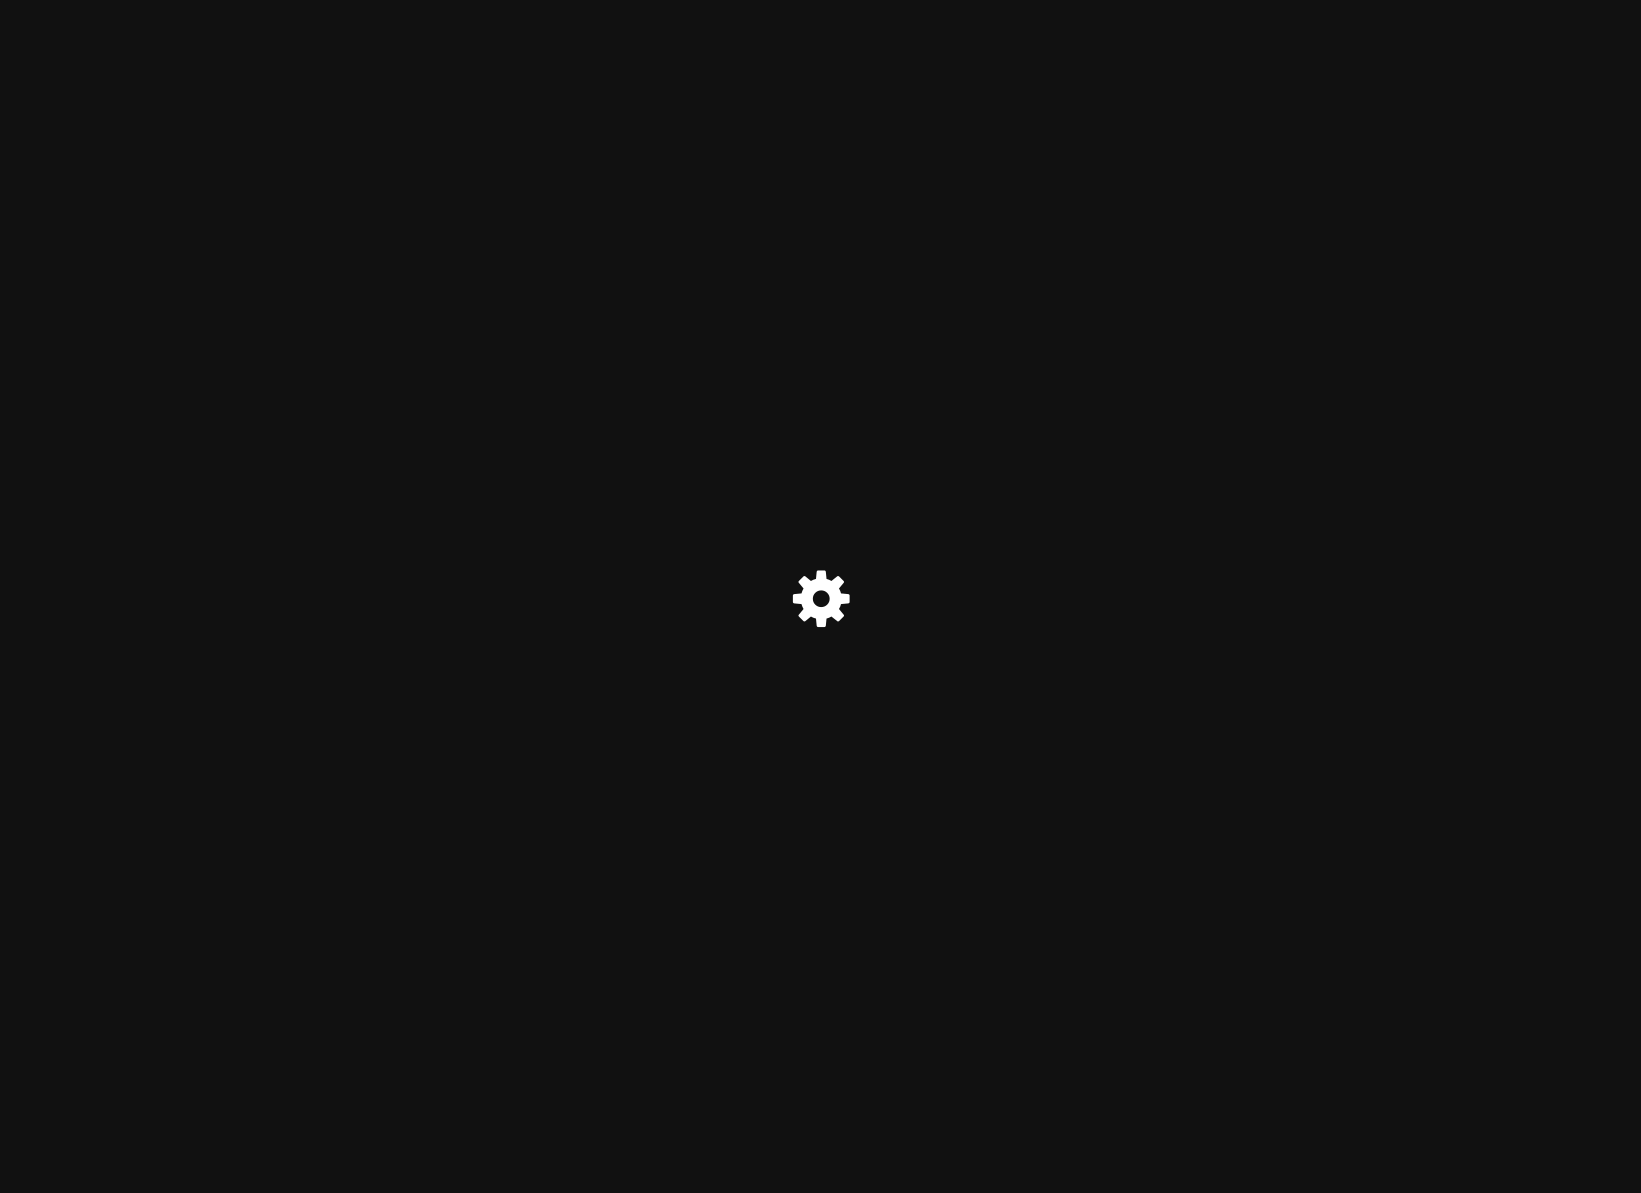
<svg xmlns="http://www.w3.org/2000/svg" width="1641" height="1193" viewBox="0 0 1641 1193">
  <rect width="100%" height="100%" fill="#111111"/>
  <image x="792" y="570" width="58" height="58" href="img1.png"/>
</svg>
